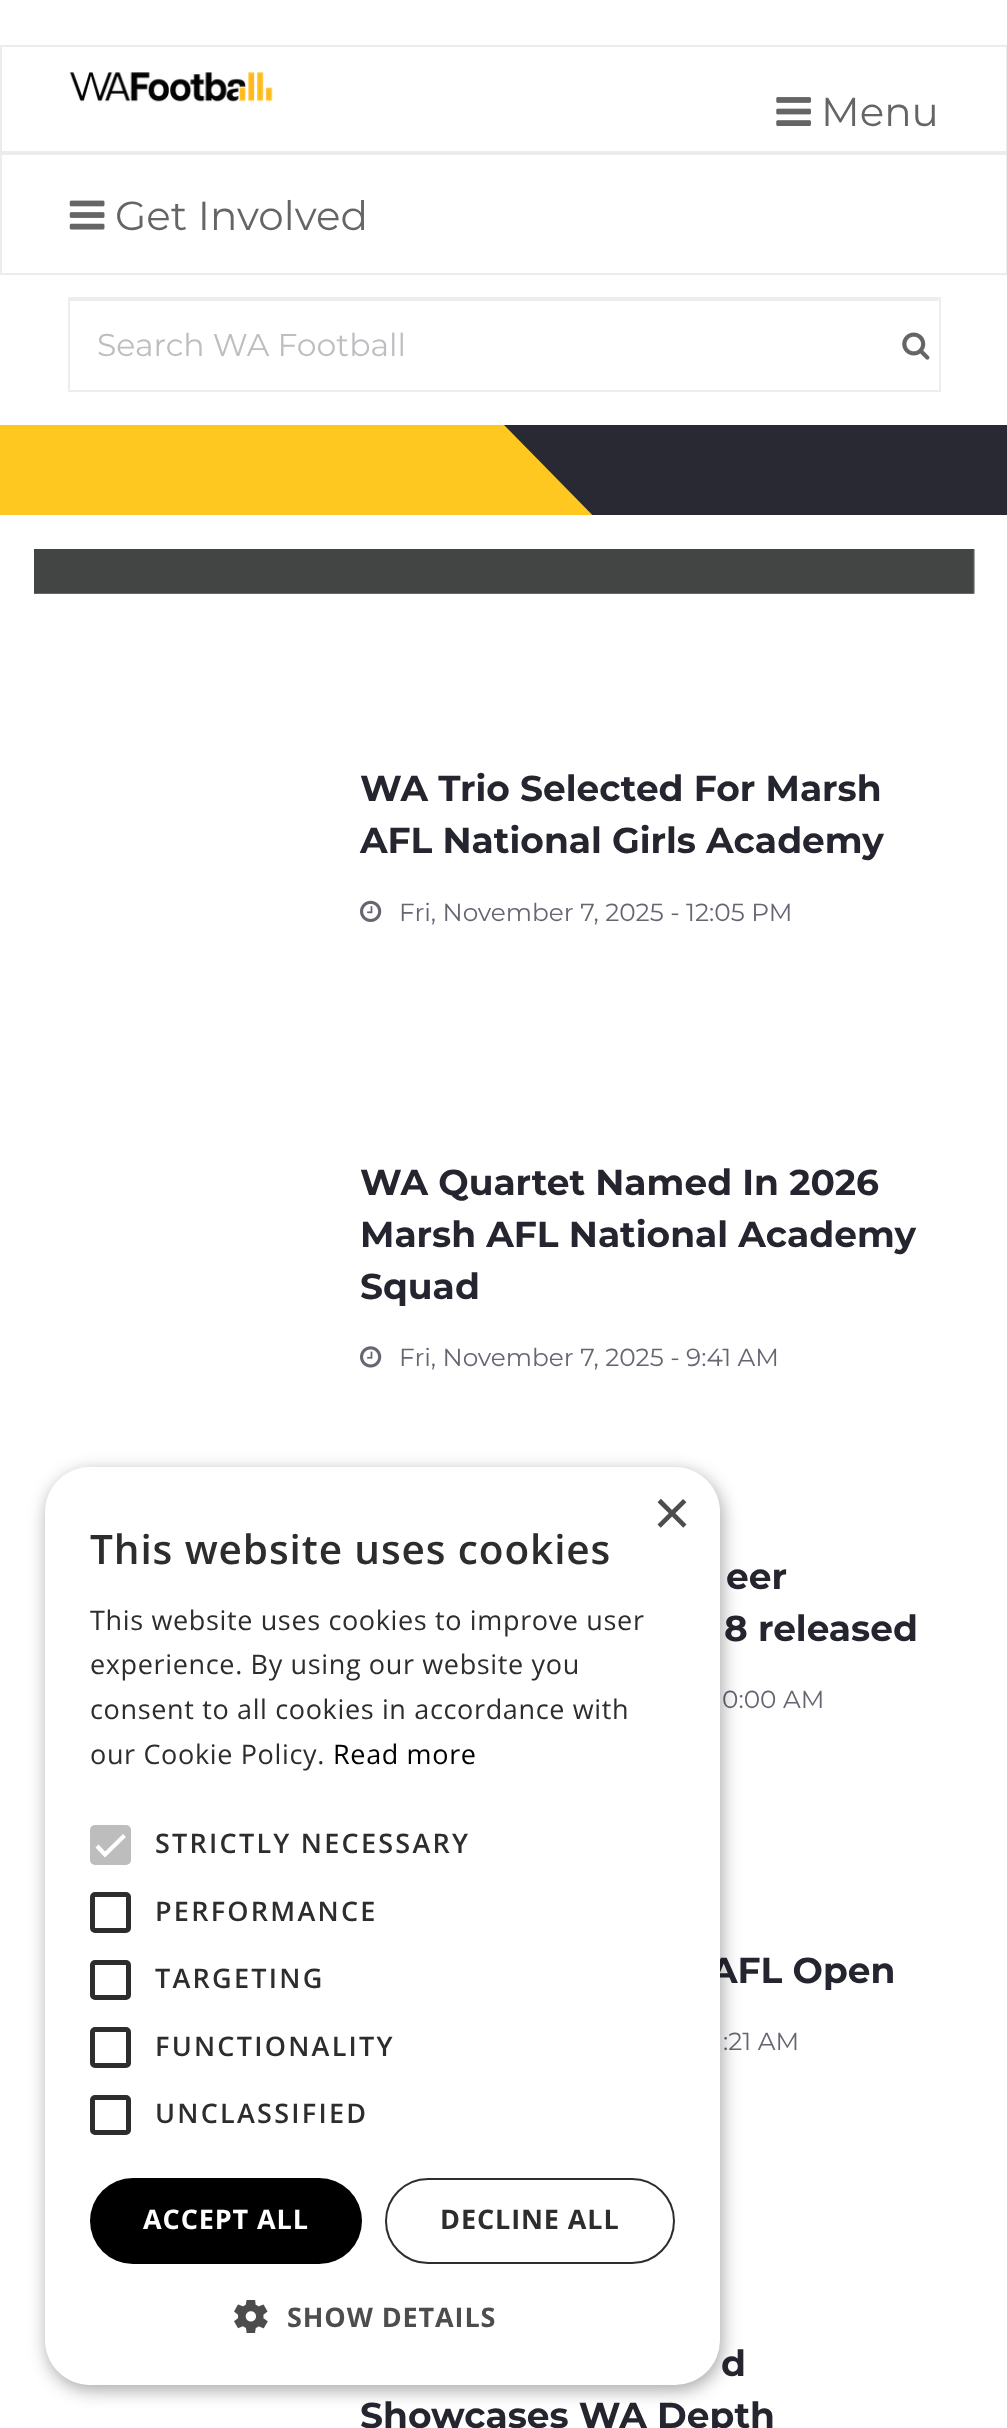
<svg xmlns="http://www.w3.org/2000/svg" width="1007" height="2428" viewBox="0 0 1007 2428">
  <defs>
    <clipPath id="clip1"><rect x="0" y="425" width="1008" height="90"/></clipPath>
    <filter id="blur1" x="-50%" y="-200%" width="200%" height="500%"><feGaussianBlur stdDeviation="9"/></filter>
  </defs>
  <rect width="100%" height="100%" fill="#ffffff"/>
  <rect x="1" y="46" width="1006" height="106" fill="none" stroke="#ececec" stroke-width="2"/>
  <image x="69" y="72" width="204" height="30" href="img1.png"/>
  <image x="776" y="97" width="35" height="29" href="img2.png"/>
  <text x="821" y="126" font-family="Montserrat" font-size="40.5" fill="#656565">Menu</text>
  <rect x="1" y="154" width="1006" height="120" fill="none" stroke="#ececec" stroke-width="2"/>
  <image x="69" y="200" width="36" height="30" href="img3.png"/>
  <text x="115" y="230" font-family="Montserrat" font-size="40.5" fill="#656565">Get Involved</text>
  <rect x="70" y="299" width="868" height="2" fill="#ececec"/>
  <rect x="69" y="298" width="871" height="93" fill="none" stroke="#ededed" stroke-width="2"/>
  <text x="97" y="356" font-family="Montserrat" font-size="31.5" fill="#bdbec1">Search WA Football</text>
  <image x="902" y="332" width="28" height="28" href="img4.png"/>
  <rect x="504" y="425" width="503" height="90" fill="#282933"/>
  <rect x="0" y="425" width="504" height="90" fill="#fec821"/>
  <g clip-path="url(#clip1)">
    <path d="M504 700V425L774 700Z" fill="#fec821"/>
  </g>
  <image x="34" y="549" width="941" height="45" href="img5.png"/>
  <text x="360" y="801" font-family="Montserrat" font-size="36" font-weight="bold" fill="#24252f">WA Trio Selected For Marsh</text>
  <text x="360" y="853" font-family="Montserrat" font-size="36" font-weight="bold" fill="#24252f">AFL National Girls Academy</text>
  <image x="360" y="900" width="22" height="22" href="img6.png"/>
  <text x="399" y="921" font-family="Montserrat" font-size="24.75" fill="#656672">Fri, November 7, 2025 - 12:05 PM</text>
  <text x="360" y="1195" font-family="Montserrat" font-size="36" font-weight="bold" fill="#24252f">WA Quartet Named In 2026</text>
  <text x="360" y="1247" font-family="Montserrat" font-size="36" font-weight="bold" fill="#24252f">Marsh AFL National Academy</text>
  <text x="360" y="1299" font-family="Montserrat" font-size="36" font-weight="bold" fill="#24252f">Squad</text>
  <image x="360" y="1346" width="22" height="22" href="img7.png"/>
  <text x="399" y="1366" font-family="Montserrat" font-size="24.75" fill="#656672">Fri, November 7, 2025 - 9:41 AM</text>
  <text x="726" y="1589" font-family="Montserrat" font-size="36" font-weight="bold" fill="#24252f">eer</text>
  <text x="724" y="1641" font-family="Montserrat" font-size="36" font-weight="bold" fill="#24252f">8 released</text>
  <text x="722" y="1708" font-family="Montserrat" font-size="24.75" fill="#656672">0:00 AM</text>
  <text x="710" y="1983" font-family="Montserrat" font-size="36" font-weight="bold" fill="#24252f">AFL Open</text>
  <text x="723" y="2050" font-family="Montserrat" font-size="24.75" fill="#656672">:21 AM</text>
  <text x="721" y="2376" font-family="Montserrat" font-size="36" font-weight="bold" fill="#24252f">d</text>
  <text x="360" y="2428" font-family="Montserrat" font-size="36" font-weight="bold" fill="#24252f">Showcases WA Depth</text>
  <rect x="47" y="1472" width="675" height="918" rx="45" fill="#000000" fill-opacity="0.35" filter="url(#blur1)"/>
  <rect x="45" y="1467" width="675" height="918" rx="45" fill="#ffffff"/>
  <text x="653" y="1535" font-family="Liberation Sans" font-size="65" fill="#4d4d4d">×</text>
  <text x="90" y="1564" font-family="Open Sans" font-size="40.5" font-weight="600" letter-spacing="0.9" fill="#2d2d2d">This website uses cookies</text>
  <text x="90" y="1630" font-family="Open Sans" font-size="27" letter-spacing="0.65" fill="#2d2d2d">This website uses cookies to improve user</text>
  <text x="90" y="1674" font-family="Open Sans" font-size="27" letter-spacing="0.65" fill="#2d2d2d">experience. By using our website you</text>
  <text x="90" y="1719" font-family="Open Sans" font-size="27" letter-spacing="0.65" fill="#2d2d2d">consent to all cookies in accordance with</text>
  <text x="90" y="1764" font-family="Open Sans" font-size="27" letter-spacing="0.65" fill="#2d2d2d">our Cookie Policy.</text>
  <text x="333" y="1764" font-family="Open Sans" font-size="27" letter-spacing="0.65" fill="#000000">Read more</text>
  <rect x="90" y="1825" width="41" height="40" rx="5" fill="#bdbdbd"/>
  <path d="M97 1846L105 1854.5L124.5 1835.5" fill="none" stroke="#ffffff" stroke-width="4.1"/>
  <text x="155" y="1853" font-family="Open Sans" font-size="27" font-weight="600" letter-spacing="2.25" fill="#2d2d2d">STRICTLY NECESSARY</text>
  <rect x="92.5" y="1894.5" width="36" height="36" rx="2.5" fill="none" stroke="#2d2d2d" stroke-width="5"/>
  <text x="155" y="1921" font-family="Open Sans" font-size="27" font-weight="600" letter-spacing="2.25" fill="#2d2d2d">PERFORMANCE</text>
  <rect x="92.5" y="1962.5" width="36" height="35" rx="2.5" fill="none" stroke="#2d2d2d" stroke-width="5"/>
  <text x="155" y="1988" font-family="Open Sans" font-size="27" font-weight="600" letter-spacing="2.25" fill="#2d2d2d">TARGETING</text>
  <rect x="92.5" y="2029.5" width="36" height="36" rx="2.5" fill="none" stroke="#2d2d2d" stroke-width="5"/>
  <text x="155" y="2056" font-family="Open Sans" font-size="27" font-weight="600" letter-spacing="2.25" fill="#2d2d2d">FUNCTIONALITY</text>
  <rect x="92.5" y="2097.5" width="36" height="35" rx="2.5" fill="none" stroke="#2d2d2d" stroke-width="5"/>
  <text x="155" y="2123" font-family="Open Sans" font-size="27" font-weight="600" letter-spacing="2.25" fill="#2d2d2d">UNCLASSIFIED</text>
  <rect x="90" y="2178" width="272" height="86" rx="43" fill="#000000"/>
  <text x="143" y="2229" font-family="Open Sans" font-size="27" font-weight="bold" letter-spacing="0.9" fill="#ffffff">ACCEPT ALL</text>
  <rect x="386" y="2179" width="288" height="84" rx="42" fill="none" stroke="#2d2d2d" stroke-width="2"/>
  <text x="440" y="2229" font-family="Open Sans" font-size="27" font-weight="bold" letter-spacing="0.9" fill="#2d2d2d">DECLINE ALL</text>
  <image x="234" y="2300" width="34" height="33" href="img8.png"/>
  <text x="287" y="2327" font-family="Open Sans" font-size="27" font-weight="bold" letter-spacing="0.9" fill="#4d4d4d">SHOW DETAILS</text>
</svg>
